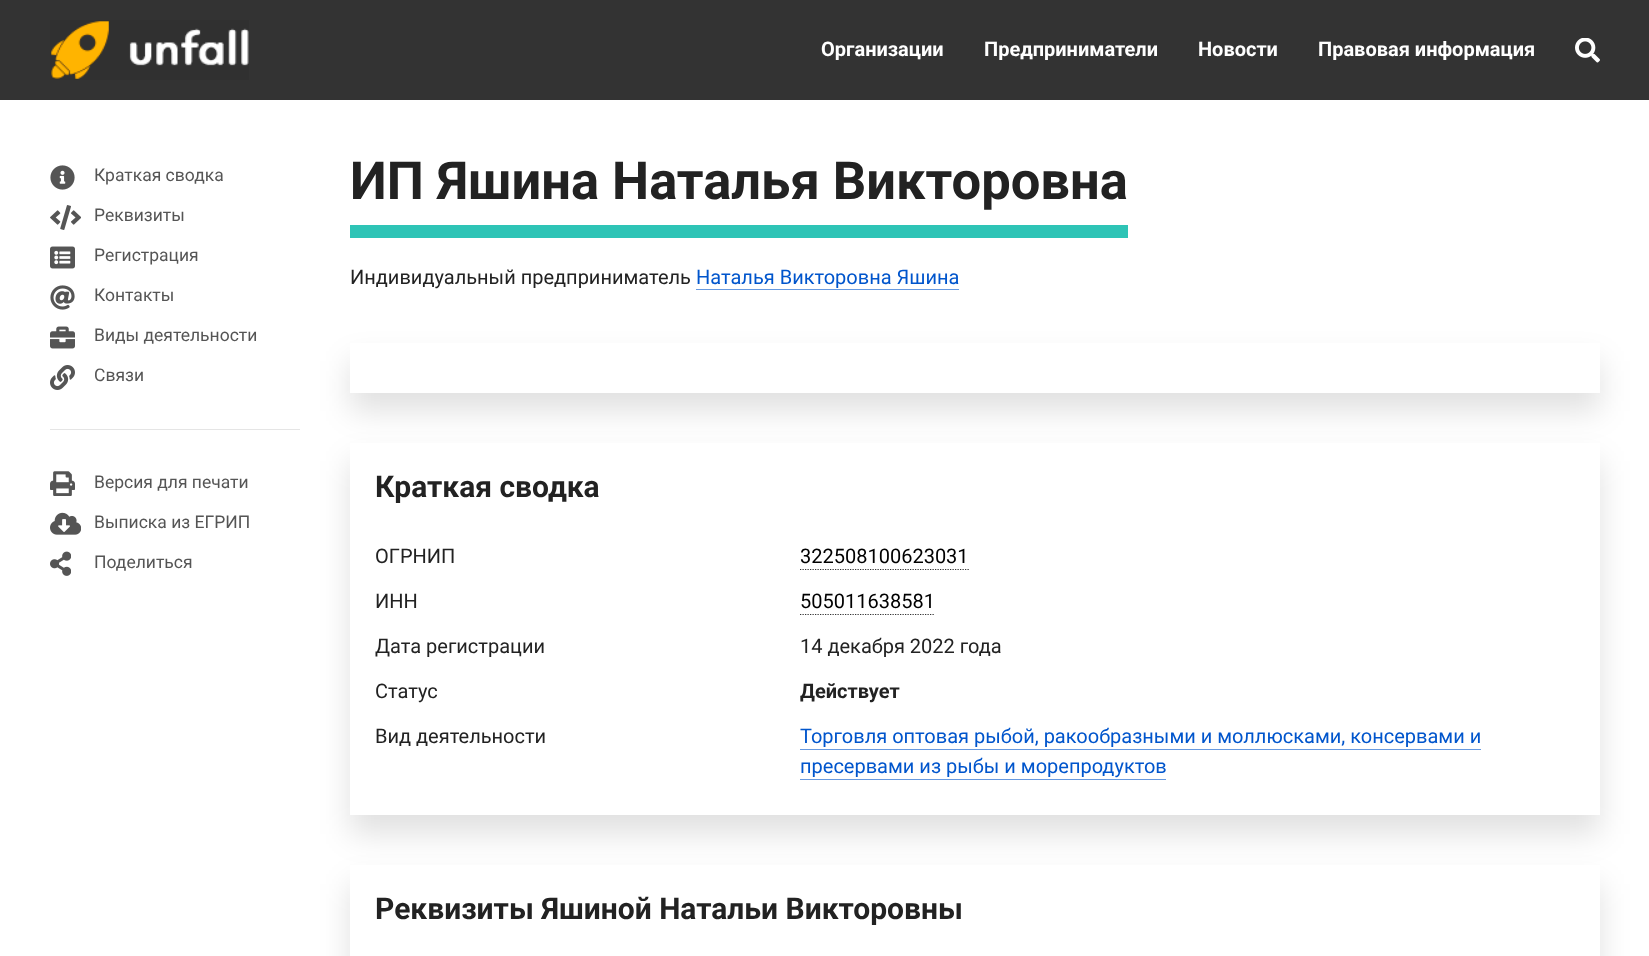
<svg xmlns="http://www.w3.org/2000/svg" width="1649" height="956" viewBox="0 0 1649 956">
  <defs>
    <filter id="blur1" x="-50%" y="-200%" width="200%" height="500%"><feGaussianBlur stdDeviation="15.5"/></filter>
    <clipPath id="clip1"><path d="M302 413H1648V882H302ZM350 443H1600V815H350Z" clip-rule="evenodd"/></clipPath>
    <clipPath id="clip2"><path d="M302 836H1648V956H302ZM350 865H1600V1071H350Z" clip-rule="evenodd"/></clipPath>
  </defs>
  <rect width="100%" height="100%" fill="#ffffff"/>
  <rect x="0" y="0" width="1649" height="100" fill="#333333"/>
  <image x="50" y="20" width="199" height="60" href="img1.png"/>
  <text x="821" y="56" font-family="Roboto" font-size="20" font-weight="bold" fill="#ffffff">Организации</text>
  <text x="984" y="56" font-family="Roboto" font-size="20" font-weight="bold" fill="#ffffff">Предприниматели</text>
  <text x="1198" y="56" font-family="Roboto" font-size="20" font-weight="bold" fill="#ffffff">Новости</text>
  <text x="1318" y="56" font-family="Roboto" font-size="20" font-weight="bold" fill="#ffffff">Правовая информация</text>
  <image x="1575" y="38" width="25" height="25" href="img2.png"/>
  <image x="50" y="165" width="25" height="25" href="img3.png"/>
  <text x="94" y="181" font-family="Roboto" font-size="17.5" fill="#555555">Краткая сводка</text>
  <image x="50" y="205" width="31" height="25" href="img4.png"/>
  <text x="94" y="221" font-family="Roboto" font-size="17.5" fill="#555555">Реквизиты</text>
  <image x="50" y="246" width="25" height="23" href="img5.png"/>
  <text x="94" y="261" font-family="Roboto" font-size="17.5" fill="#555555">Регистрация</text>
  <image x="50" y="285" width="25" height="25" href="img6.png"/>
  <text x="94" y="301" font-family="Roboto" font-size="17.5" fill="#555555">Контакты</text>
  <image x="50" y="326" width="25" height="23" href="img7.png"/>
  <text x="94" y="341" font-family="Roboto" font-size="17.5" fill="#555555">Виды деятельности</text>
  <image x="50" y="365" width="25" height="25" href="img8.png"/>
  <text x="94" y="381" font-family="Roboto" font-size="17.5" fill="#555555">Связи</text>
  <rect x="50" y="429" width="250" height="1" fill="#e5e5e5"/>
  <image x="50" y="471" width="25" height="25" href="img9.png"/>
  <text x="94" y="488" font-family="Roboto" font-size="17.5" fill="#555555">Версия для печати</text>
  <image x="50" y="512" width="31" height="23" href="img10.png"/>
  <text x="94" y="528" font-family="Roboto" font-size="17.5" fill="#555555">Выписка из ЕГРИП</text>
  <image x="50" y="551" width="21" height="25" href="img11.png"/>
  <text x="94" y="568" font-family="Roboto" font-size="17.5" fill="#555555">Поделиться</text>
  <rect x="350" y="225" width="778" height="13" fill="#2ec4b6"/>
  <text x="350" y="199" font-family="Roboto" font-size="52.5" font-weight="bold" fill="#222222">ИП Яшина Наталья Викторовна</text>
  <text x="350" y="284" font-family="Roboto" font-size="20" fill="#222222">Индивидуальный предприниматель</text>
  <text x="696" y="284" font-family="Roboto" font-size="20" fill="#0055cc">Наталья Викторовна Яшина</text>
  <rect x="696" y="289" width="263" height="1" fill="#6699e0"/>
  <rect x="350" y="361" width="1250" height="50" fill="#000000" fill-opacity="0.12" filter="url(#blur1)"/>
  <rect x="350" y="343" width="1250" height="50" fill="#ffffff"/>
  <g clip-path="url(#clip1)">
    <rect x="350" y="461" width="1250" height="373" fill="#000000" fill-opacity="0.12" filter="url(#blur1)"/>
  </g>
  <text x="375" y="497" font-family="Roboto" font-size="30" font-weight="bold" fill="#222222">Краткая сводка</text>
  <text x="375" y="563" font-family="Roboto" font-size="20" fill="#222222">ОГРНИП</text>
  <text x="800" y="563" font-family="Roboto" font-size="20" fill="#000000">322508100623031</text>
  <path d="M800 569.5H969" fill="none" stroke="#333333" stroke-width="1.2" stroke-dasharray="1.25 1.25"/>
  <text x="375" y="608" font-family="Roboto" font-size="20" fill="#222222">ИНН</text>
  <text x="800" y="608" font-family="Roboto" font-size="20" fill="#000000">505011638581</text>
  <path d="M800 614.5H935" fill="none" stroke="#333333" stroke-width="1.2" stroke-dasharray="1.25 1.25"/>
  <text x="375" y="653" font-family="Roboto" font-size="20" fill="#222222">Дата регистрации</text>
  <text x="800" y="653" font-family="Roboto" font-size="20" fill="#222222">14 декабря 2022 года</text>
  <text x="375" y="698" font-family="Roboto" font-size="20" fill="#222222">Статус</text>
  <text x="800" y="698" font-family="Roboto" font-size="20" font-weight="bold" fill="#222222">Действует</text>
  <text x="375" y="743" font-family="Roboto" font-size="20" fill="#222222">Вид деятельности</text>
  <text x="800" y="743" font-family="Roboto" font-size="20" fill="#0055cc">Торговля оптовая рыбой, ракообразными и моллюсками, консервами и</text>
  <rect x="800" y="749" width="681" height="1" fill="#6699e0"/>
  <text x="800" y="773" font-family="Roboto" font-size="20" fill="#0055cc">пресервами из рыбы и морепродуктов</text>
  <rect x="800" y="779" width="366" height="1" fill="#6699e0"/>
  <g clip-path="url(#clip2)">
    <rect x="350" y="884" width="1250" height="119" fill="#000000" fill-opacity="0.12" filter="url(#blur1)"/>
  </g>
  <text x="375" y="919" font-family="Roboto" font-size="30" font-weight="bold" fill="#222222">Реквизиты Яшиной Натальи Викторовны</text>
</svg>
